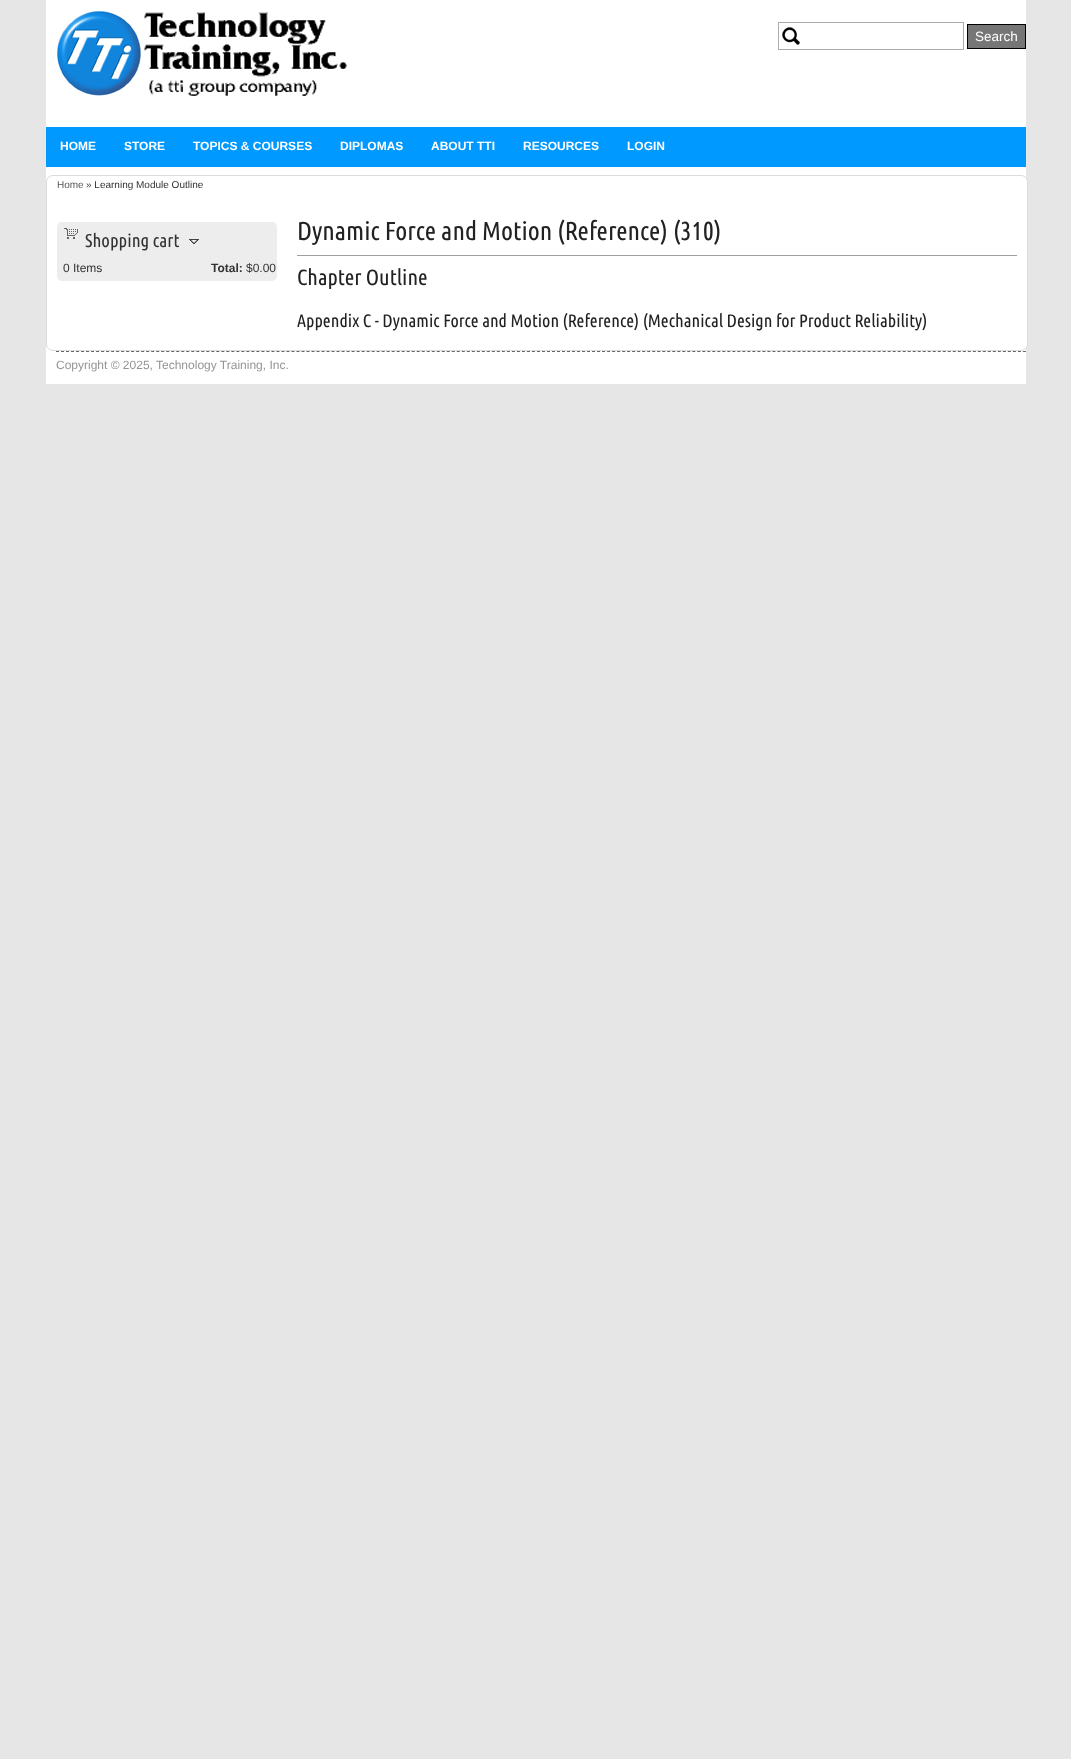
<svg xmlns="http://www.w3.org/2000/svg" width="1071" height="1759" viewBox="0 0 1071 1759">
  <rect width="100%" height="100%" fill="#e6e6e6"/>
  <rect x="46" y="0" width="980" height="384" fill="#ffffff"/>
  <image x="57" y="11" width="290" height="85" href="img1.png"/>
  <image x="782" y="27" width="18" height="18" href="img2.png"/>
  <rect x="778.5" y="22.5" width="185" height="27" fill="none" stroke="#acacac"/>
  <rect x="967.5" y="24.5" width="58" height="24" fill="#767676" stroke="#000000"/>
  <text x="975" y="41" font-family="Liberation Sans" font-size="13.5" fill="#ffffff">Search</text>
  <rect x="46" y="127" width="980" height="40" fill="#0099ff"/>
  <text x="60" y="150" font-family="Liberation Sans" font-size="12" font-weight="bold" fill="#ffffff">HOME</text>
  <text x="124" y="150" font-family="Liberation Sans" font-size="12" font-weight="bold" fill="#ffffff">STORE</text>
  <text x="193" y="150" font-family="Liberation Sans" font-size="12" font-weight="bold" fill="#ffffff">TOPICS &amp; COURSES</text>
  <text x="340" y="150" font-family="Liberation Sans" font-size="12" font-weight="bold" fill="#ffffff">DIPLOMAS</text>
  <text x="431" y="150" font-family="Liberation Sans" font-size="12" font-weight="bold" fill="#ffffff">ABOUT TTI</text>
  <text x="523" y="150" font-family="Liberation Sans" font-size="12" font-weight="bold" fill="#ffffff">RESOURCES</text>
  <text x="627" y="150" font-family="Liberation Sans" font-size="12" font-weight="bold" fill="#ffffff">LOGIN</text>
  <rect x="46.5" y="175.5" width="981" height="175" rx="6.5" fill="#ffffff" stroke="#dbdbdb"/>
  <text x="57" y="188" font-family="Liberation Sans" font-size="10" fill="#585858">Home</text>
  <text x="86" y="188" font-family="Liberation Sans" font-size="10" fill="#323232">» Learning Module Outline</text>
  <rect x="57" y="222" width="220" height="59" rx="5" fill="#ededee"/>
  <image x="64" y="228" width="14" height="11" href="img3.png"/>
  <text x="85" y="247" font-family="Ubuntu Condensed" font-size="18.5" fill="#323232">Shopping cart</text>
  <image x="189" y="239" width="10" height="5" href="img4.png"/>
  <text x="63" y="272" font-family="Liberation Sans" font-size="12" fill="#323232">0 Items</text>
  <text x="211" y="272" font-family="Liberation Sans" font-size="12" font-weight="bold" fill="#323232">Total:</text>
  <text x="246" y="272" font-family="Liberation Sans" font-size="12" fill="#323232">$0.00</text>
  <text x="297" y="240" font-family="Ubuntu Condensed" font-size="26" fill="#222222">Dynamic Force and Motion (Reference) (310)</text>
  <rect x="297" y="255" width="720" height="1" fill="#9f9f9f"/>
  <text x="297" y="285" font-family="Ubuntu Condensed" font-size="22" fill="#222222">Chapter Outline</text>
  <text x="297" y="327" font-family="Ubuntu Condensed" font-size="18" fill="#222222">Appendix C - Dynamic Force and Motion (Reference) (Mechanical Design for Product Reliability)</text>
  <path d="M56 351.5H1026" fill="none" stroke="#656565" stroke-dasharray="3 2.01"/>
  <text x="56" y="369" font-family="Liberation Sans" font-size="12" fill="#949494">Copyright © 2025, Technology Training, Inc.</text>
</svg>
